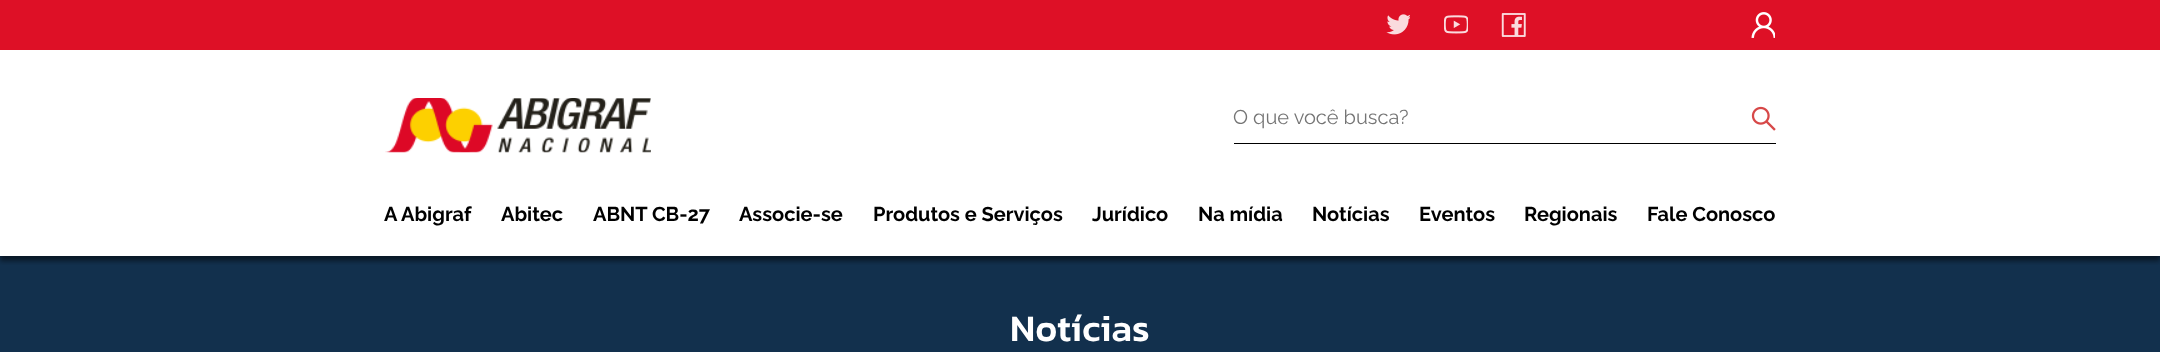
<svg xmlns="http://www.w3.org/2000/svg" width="2160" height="352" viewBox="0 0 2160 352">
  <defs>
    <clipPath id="clip1"><rect x="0" y="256" width="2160" height="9"/></clipPath>
    <filter id="blur1" x="-50%" y="-200%" width="200%" height="500%"><feGaussianBlur stdDeviation="2.5"/></filter>
  </defs>
  <rect width="100%" height="100%" fill="#ffffff"/>
  <rect x="0" y="256" width="2160" height="96" fill="#12304d"/>
  <g clip-path="url(#clip1)">
    <rect x="0" y="5" width="2160" height="256" fill="#000000" fill-opacity="0.5" filter="url(#blur1)"/>
  </g>
  <rect x="0" y="0" width="2160" height="50" fill="#de1026"/>
  <image x="1386" y="14" width="24" height="21" href="img1.png"/>
  <image x="1444" y="15" width="24" height="19" href="img2.png"/>
  <image x="1501" y="13" width="25" height="24" href="img3.png"/>
  <image x="1751" y="12" width="24" height="26" href="img4.png"/>
  <image x="385" y="98" width="266" height="55" href="img5.png"/>
  <rect x="1234" y="143" width="542" height="1" fill="#000000"/>
  <text x="1233" y="124" font-family="Raleway" font-size="20" fill="#757575">O que você busca?</text>
  <image x="1751" y="106" width="25" height="25" href="img6.png"/>
  <text x="384" y="221" font-family="Raleway" font-size="20" font-weight="bold" fill="#000000">A Abigraf</text>
  <text x="501" y="221" font-family="Raleway" font-size="20" font-weight="bold" fill="#000000">Abitec</text>
  <text x="593" y="221" font-family="Raleway" font-size="20" font-weight="bold" fill="#000000">ABNT CB-27</text>
  <text x="739" y="221" font-family="Raleway" font-size="20" font-weight="bold" fill="#000000">Associe-se</text>
  <text x="873" y="221" font-family="Raleway" font-size="20" font-weight="bold" fill="#000000">Produtos e Serviços</text>
  <text x="1092" y="221" font-family="Raleway" font-size="20" font-weight="bold" fill="#000000">Jurídico</text>
  <text x="1198" y="221" font-family="Raleway" font-size="20" font-weight="bold" fill="#000000">Na mídia</text>
  <text x="1312" y="221" font-family="Raleway" font-size="20" font-weight="bold" fill="#000000">Notícias</text>
  <text x="1419" y="221" font-family="Raleway" font-size="20" font-weight="bold" fill="#000000">Eventos</text>
  <text x="1524" y="221" font-family="Raleway" font-size="20" font-weight="bold" fill="#000000">Regionais</text>
  <text x="1647" y="221" font-family="Raleway" font-size="20" font-weight="bold" fill="#000000">Fale Conosco</text>
  <text x="1010" y="341" font-family="Kanit" font-size="37.5" font-weight="500" fill="#ffffff">Notícias</text>
</svg>
